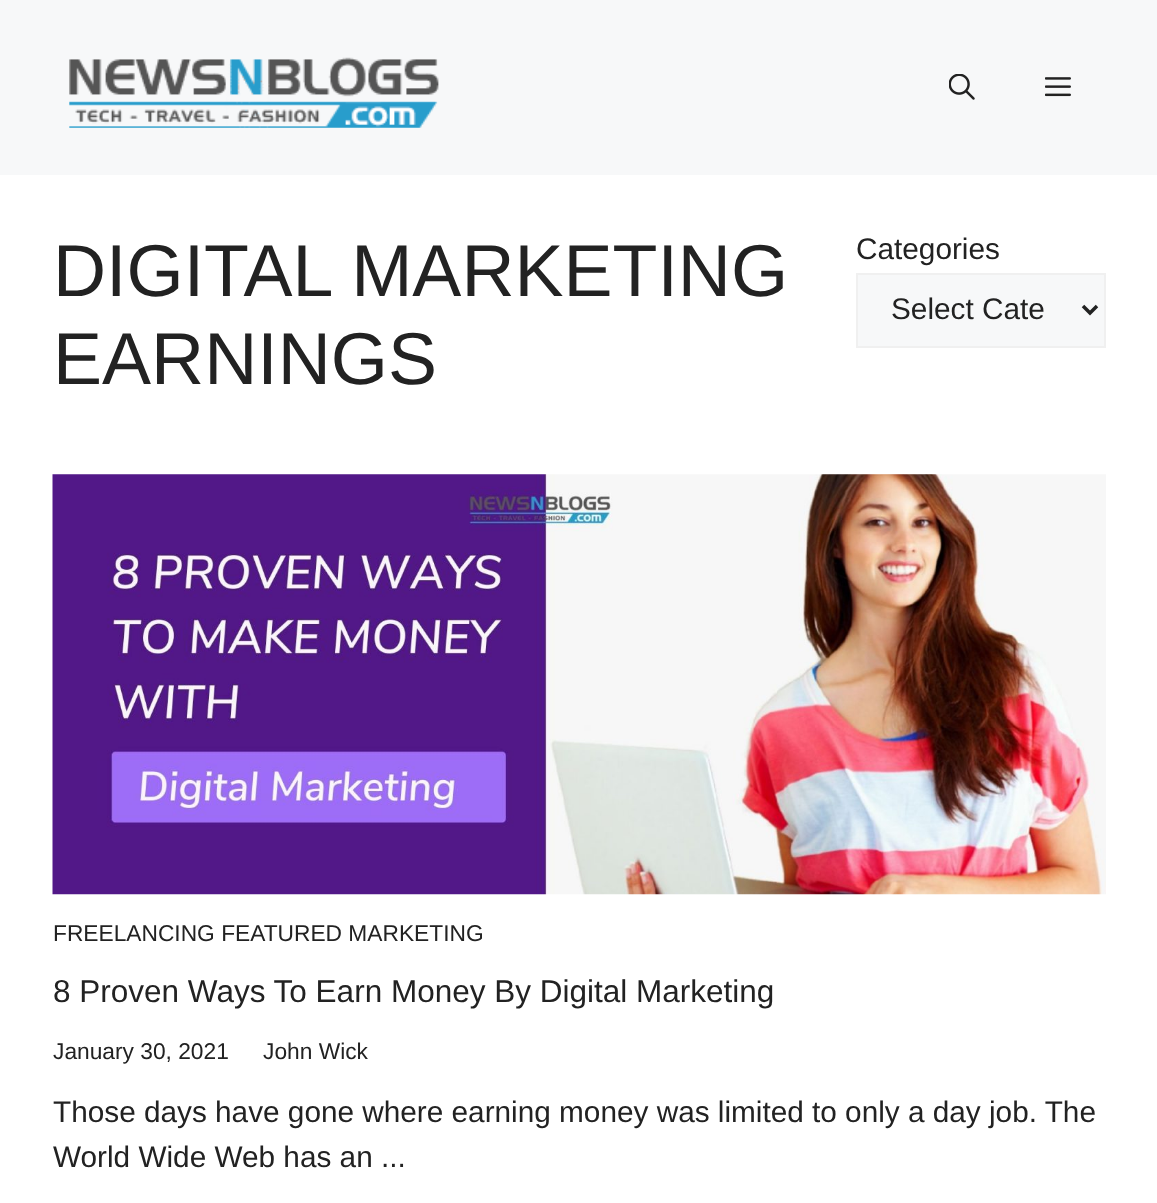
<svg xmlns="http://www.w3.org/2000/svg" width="1157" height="1203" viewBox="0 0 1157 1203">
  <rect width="100%" height="100%" fill="#ffffff"/>
  <rect x="0" y="0" width="1157" height="175" fill="#f7f8f9"/>
  <image x="69" y="57" width="370" height="71" href="img1.png"/>
  <image x="949" y="74" width="26" height="26" href="img2.png"/>
  <image x="1045" y="77" width="26" height="20" href="img3.png"/>
  <text x="53" y="296" font-family="Liberation Sans" font-size="73.5" fill="#222222">DIGITAL MARKETING</text>
  <text x="53" y="384" font-family="Liberation Sans" font-size="73.5" fill="#222222">EARNINGS</text>
  <text x="856" y="259" font-family="Liberation Sans" font-size="29.75" fill="#222222">Categories</text>
  <rect x="857" y="274" width="248" height="73" fill="#f7f8f9" stroke="#f0f0f0" stroke-width="2"/>
  <path d="M1083 306L1090 313L1097 306" fill="none" stroke="#222222" stroke-width="3.5"/>
  <text x="891" y="319" font-family="Liberation Sans" font-size="29.75" fill="#222222">Select Cate</text>
  <image x="52" y="474" width="1054" height="421" href="img4.png"/>
  <text x="53" y="941" font-family="Liberation Sans" font-size="22.75" fill="#222222">FREELANCING FEATURED MARKETING</text>
  <text x="53" y="1002" font-family="Liberation Sans" font-size="31.5" fill="#222222">8 Proven Ways To Earn Money By Digital Marketing</text>
  <text x="53" y="1059" font-family="Liberation Sans" font-size="22.75" fill="#222222">January 30, 2021</text>
  <text x="263" y="1059" font-family="Liberation Sans" font-size="22.75" fill="#222222">John Wick</text>
  <text x="53" y="1122" font-family="Liberation Sans" font-size="29.75" fill="#222222">Those days have gone where earning money was limited to only a day job. The</text>
  <text x="53" y="1167" font-family="Liberation Sans" font-size="29.75" fill="#222222">World Wide Web has an ...</text>
</svg>
